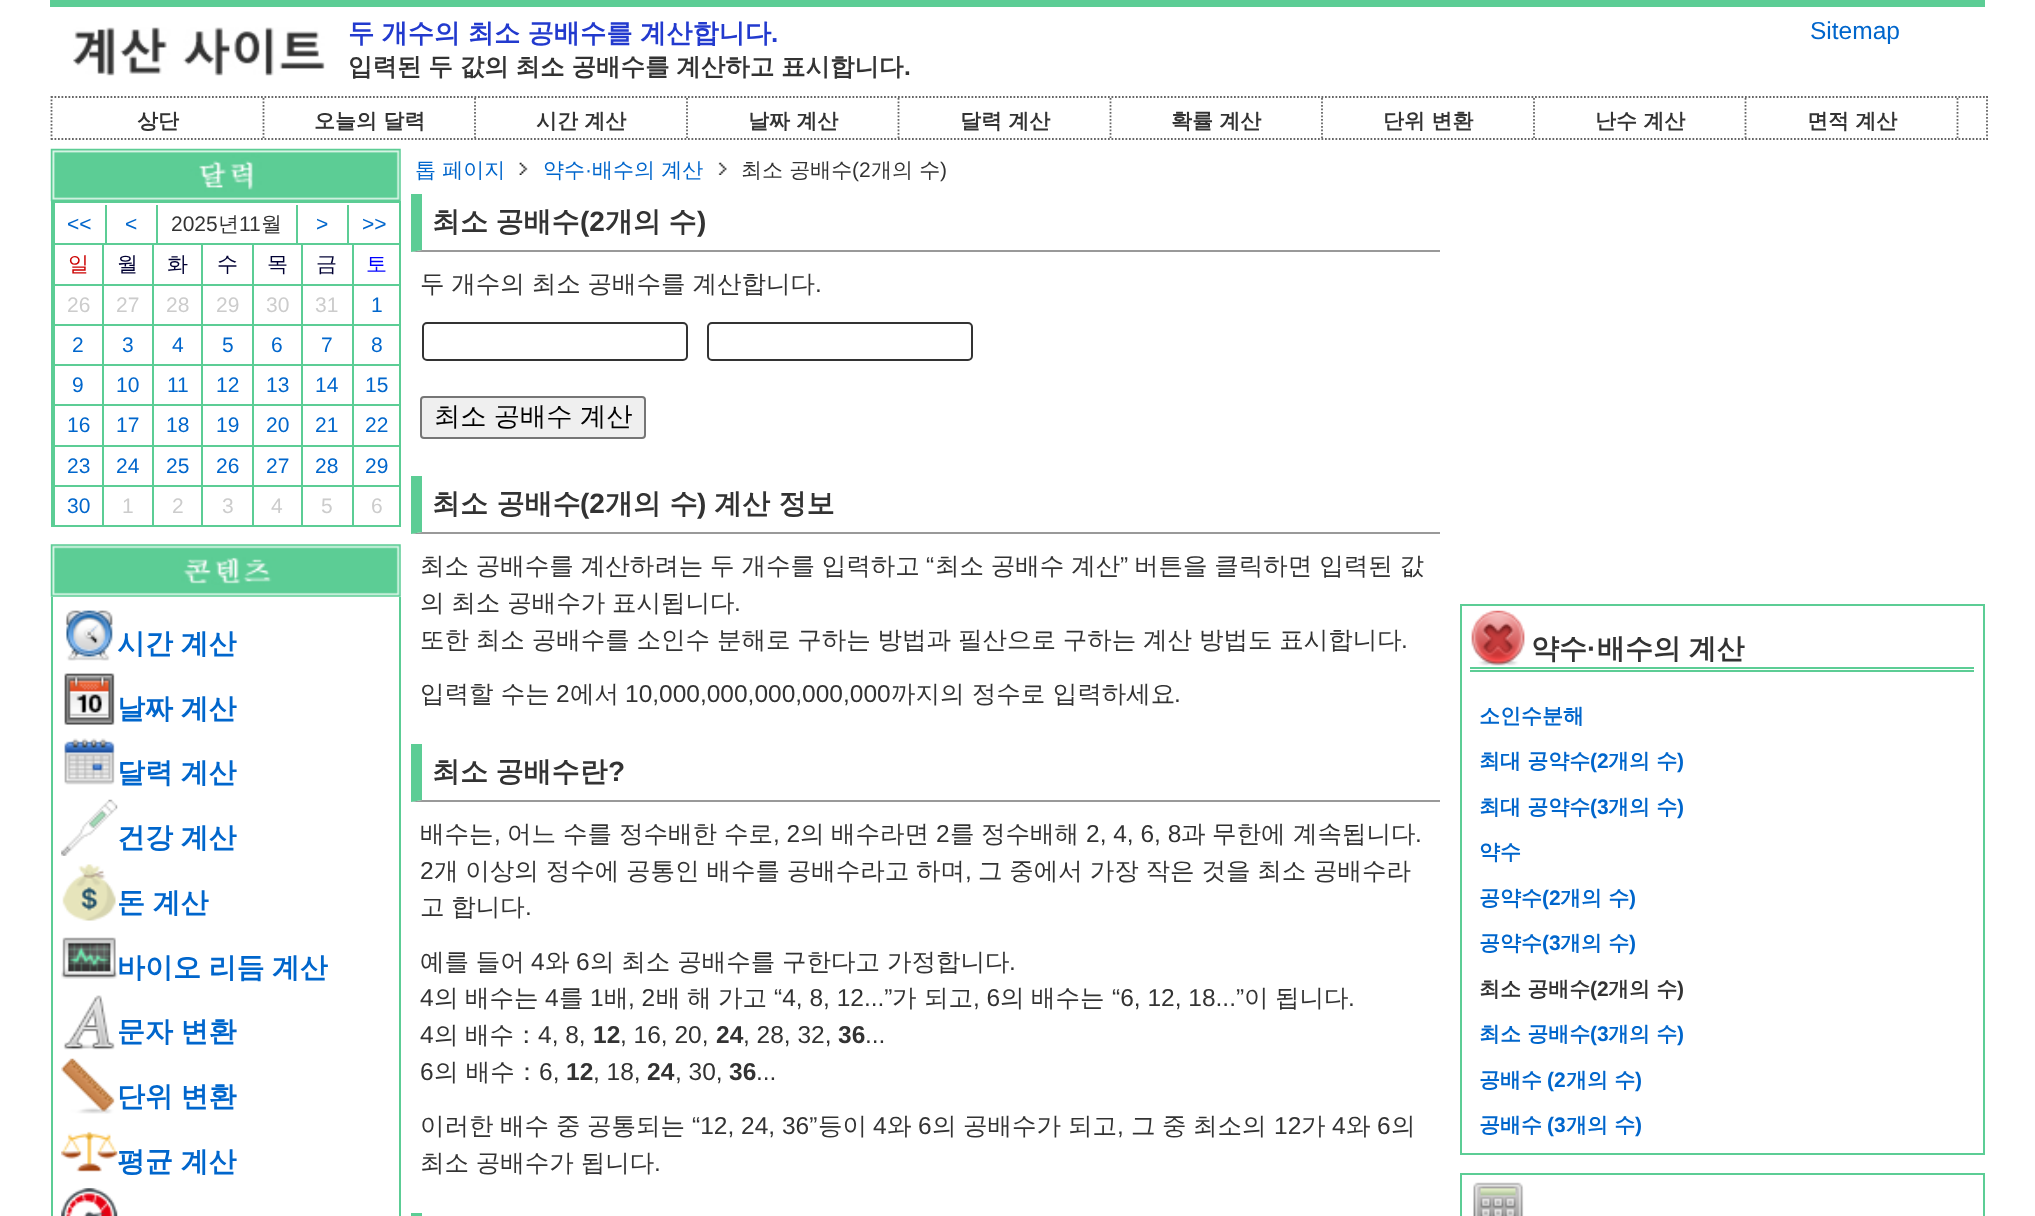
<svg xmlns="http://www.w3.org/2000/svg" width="2035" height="1216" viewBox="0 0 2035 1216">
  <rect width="100%" height="100%" fill="#ffffff"/>
  <rect x="50" y="0" width="1935" height="7" fill="#5ccd95"/>
  <image x="73" y="27" width="252" height="49" href="img1.png"/>
  <text x="348" y="42" word-spacing="-0.5" font-family="WenQuanYi Zen Hei" font-size="26.25" font-weight="bold" fill="#223ace">두 개수의 최소 공배수를 계산합니다</text>
  <text x="771" y="42" font-family="Liberation Sans" font-size="26.25" font-weight="bold" fill="#223ace">.</text>
  <text x="348" y="75" word-spacing="-0.5" font-family="WenQuanYi Zen Hei" font-size="24.5" font-weight="bold" fill="#333333">입력된 두 값의 최소 공배수를 계산하고 표시합니다</text>
  <text x="904" y="75" font-family="Liberation Sans" font-size="24.5" font-weight="bold" fill="#333333">.</text>
  <text x="1810" y="39" font-family="Liberation Sans" font-size="24.5" fill="#0066cc">Sitemap</text>
  <path d="M51 97H1988" fill="none" stroke="#666666" stroke-width="1.8" stroke-dasharray="1.75 1.75"/>
  <path d="M1987 96V140" fill="none" stroke="#666666" stroke-width="1.8" stroke-dasharray="1.75 1.75"/>
  <path d="M51 139H1988" fill="none" stroke="#666666" stroke-width="1.8" stroke-dasharray="1.75 1.75"/>
  <path d="M51.5 96V140" fill="none" stroke="#666666" stroke-width="1.8" stroke-dasharray="1.75 1.75"/>
  <path d="M263.5 98V138" fill="none" stroke="#666666" stroke-width="1.8" stroke-dasharray="1.75 1.75"/>
  <text x="137" y="128" font-family="WenQuanYi Zen Hei" font-size="21" font-weight="bold" fill="#333333">상단</text>
  <path d="M475 98V138" fill="none" stroke="#666666" stroke-width="1.8" stroke-dasharray="1.75 1.75"/>
  <text x="314" y="128" font-family="WenQuanYi Zen Hei" font-size="21" font-weight="bold" fill="#333333">오늘의 달력</text>
  <path d="M687 98V138" fill="none" stroke="#666666" stroke-width="1.8" stroke-dasharray="1.75 1.75"/>
  <text x="536" y="128" font-family="WenQuanYi Zen Hei" font-size="21" font-weight="bold" fill="#333333">시간 계산</text>
  <path d="M898.5 98V138" fill="none" stroke="#666666" stroke-width="1.8" stroke-dasharray="1.75 1.75"/>
  <text x="748" y="128" font-family="WenQuanYi Zen Hei" font-size="21" font-weight="bold" fill="#333333">날짜 계산</text>
  <path d="M1110.5 98V138" fill="none" stroke="#666666" stroke-width="1.8" stroke-dasharray="1.75 1.75"/>
  <text x="960" y="128" font-family="WenQuanYi Zen Hei" font-size="21" font-weight="bold" fill="#333333">달력 계산</text>
  <path d="M1322 98V138" fill="none" stroke="#666666" stroke-width="1.8" stroke-dasharray="1.75 1.75"/>
  <text x="1171" y="128" font-family="WenQuanYi Zen Hei" font-size="21" font-weight="bold" fill="#333333">확률 계산</text>
  <path d="M1534 98V138" fill="none" stroke="#666666" stroke-width="1.8" stroke-dasharray="1.75 1.75"/>
  <text x="1383" y="128" font-family="WenQuanYi Zen Hei" font-size="21" font-weight="bold" fill="#333333">단위 변환</text>
  <path d="M1745.5 98V138" fill="none" stroke="#666666" stroke-width="1.8" stroke-dasharray="1.75 1.75"/>
  <text x="1595" y="128" font-family="WenQuanYi Zen Hei" font-size="21" font-weight="bold" fill="#333333">난수 계산</text>
  <path d="M1957.5 98V138" fill="none" stroke="#666666" stroke-width="1.8" stroke-dasharray="1.75 1.75"/>
  <text x="1807" y="128" font-family="WenQuanYi Zen Hei" font-size="21" font-weight="bold" fill="#333333">면적 계산</text>
  <rect x="399" y="201" width="2" height="326" fill="#5ccd95"/>
  <rect x="51" y="525" width="350" height="2" fill="#5ccd95"/>
  <rect x="51" y="201" width="2" height="326" fill="#5ccd95"/>
  <rect x="53" y="201" width="348" height="2" fill="#5ccd95"/>
  <rect x="53" y="201" width="2" height="42" fill="#5ccd95"/>
  <image x="50" y="148" width="351" height="54" href="img2.png"/>
  <rect x="105" y="205" width="2" height="38" fill="#5ccd95"/>
  <text x="67" y="231" font-family="Liberation Sans" font-size="21" fill="#0066cc">&lt;&lt;</text>
  <rect x="156" y="205" width="2" height="38" fill="#5ccd95"/>
  <text x="125" y="231" font-family="Liberation Sans" font-size="21" fill="#0066cc">&lt;</text>
  <text x="171" y="231" font-family="Liberation Sans" font-size="21" fill="#333333">2025</text>
  <text x="218" y="231" font-family="WenQuanYi Zen Hei" font-size="21" font-weight="500" fill="#333333">년</text>
  <text x="239" y="231" font-family="Liberation Sans" font-size="21" fill="#333333">11</text>
  <text x="261" y="231" font-family="WenQuanYi Zen Hei" font-size="21" font-weight="500" fill="#333333">월</text>
  <rect x="296" y="205" width="2" height="38" fill="#5ccd95"/>
  <text x="316" y="231" font-family="Liberation Sans" font-size="21" fill="#0066cc">&gt;</text>
  <rect x="347" y="205" width="2" height="38" fill="#5ccd95"/>
  <text x="362" y="231" font-family="Liberation Sans" font-size="21" fill="#0066cc">&gt;&gt;</text>
  <rect x="53" y="243" width="348" height="2" fill="#5ccd95"/>
  <rect x="53" y="243" width="2" height="41" fill="#5ccd95"/>
  <text x="68" y="271" font-family="WenQuanYi Zen Hei" font-size="21" font-weight="500" fill="#cc0000">일</text>
  <rect x="102" y="243" width="2" height="41" fill="#5ccd95"/>
  <text x="117" y="271" font-family="WenQuanYi Zen Hei" font-size="21" font-weight="500" fill="#000033">월</text>
  <rect x="152" y="243" width="2" height="41" fill="#5ccd95"/>
  <text x="167" y="271" font-family="WenQuanYi Zen Hei" font-size="21" font-weight="500" fill="#000033">화</text>
  <rect x="201" y="243" width="2" height="41" fill="#5ccd95"/>
  <text x="217" y="271" font-family="WenQuanYi Zen Hei" font-size="21" font-weight="500" fill="#000033">수</text>
  <rect x="252" y="243" width="2" height="41" fill="#5ccd95"/>
  <text x="267" y="271" font-family="WenQuanYi Zen Hei" font-size="21" font-weight="500" fill="#000033">목</text>
  <rect x="301" y="243" width="2" height="41" fill="#5ccd95"/>
  <text x="316" y="271" font-family="WenQuanYi Zen Hei" font-size="21" font-weight="500" fill="#000033">금</text>
  <rect x="352" y="243" width="2" height="41" fill="#5ccd95"/>
  <text x="366" y="271" font-family="WenQuanYi Zen Hei" font-size="21" font-weight="500" fill="#0000ff">토</text>
  <rect x="53" y="284" width="348" height="2" fill="#5ccd95"/>
  <rect x="53" y="284" width="2" height="40" fill="#5ccd95"/>
  <text x="67" y="312" font-family="Liberation Sans" font-size="21" fill="#cccccc">26</text>
  <rect x="102" y="284" width="2" height="40" fill="#5ccd95"/>
  <text x="116" y="312" font-family="Liberation Sans" font-size="21" fill="#cccccc">27</text>
  <rect x="152" y="284" width="2" height="40" fill="#5ccd95"/>
  <text x="166" y="312" font-family="Liberation Sans" font-size="21" fill="#cccccc">28</text>
  <rect x="201" y="284" width="2" height="40" fill="#5ccd95"/>
  <text x="216" y="312" font-family="Liberation Sans" font-size="21" fill="#cccccc">29</text>
  <rect x="252" y="284" width="2" height="40" fill="#5ccd95"/>
  <text x="266" y="312" font-family="Liberation Sans" font-size="21" fill="#cccccc">30</text>
  <rect x="301" y="284" width="2" height="40" fill="#5ccd95"/>
  <text x="315" y="312" font-family="Liberation Sans" font-size="21" fill="#cccccc">31</text>
  <rect x="352" y="284" width="2" height="40" fill="#5ccd95"/>
  <text x="371" y="312" font-family="Liberation Sans" font-size="21" fill="#0066cc">1</text>
  <rect x="53" y="324" width="348" height="2" fill="#5ccd95"/>
  <rect x="53" y="324" width="2" height="40" fill="#5ccd95"/>
  <text x="72" y="352" font-family="Liberation Sans" font-size="21" fill="#0066cc">2</text>
  <rect x="102" y="324" width="2" height="40" fill="#5ccd95"/>
  <text x="122" y="352" font-family="Liberation Sans" font-size="21" fill="#0066cc">3</text>
  <rect x="152" y="324" width="2" height="40" fill="#5ccd95"/>
  <text x="172" y="352" font-family="Liberation Sans" font-size="21" fill="#0066cc">4</text>
  <rect x="201" y="324" width="2" height="40" fill="#5ccd95"/>
  <text x="222" y="352" font-family="Liberation Sans" font-size="21" fill="#0066cc">5</text>
  <rect x="252" y="324" width="2" height="40" fill="#5ccd95"/>
  <text x="271" y="352" font-family="Liberation Sans" font-size="21" fill="#0066cc">6</text>
  <rect x="301" y="324" width="2" height="40" fill="#5ccd95"/>
  <text x="321" y="352" font-family="Liberation Sans" font-size="21" fill="#0066cc">7</text>
  <rect x="352" y="324" width="2" height="40" fill="#5ccd95"/>
  <text x="371" y="352" font-family="Liberation Sans" font-size="21" fill="#0066cc">8</text>
  <rect x="53" y="364" width="348" height="2" fill="#5ccd95"/>
  <rect x="53" y="364" width="2" height="40" fill="#5ccd95"/>
  <text x="72" y="392" font-family="Liberation Sans" font-size="21" fill="#0066cc">9</text>
  <rect x="102" y="364" width="2" height="40" fill="#5ccd95"/>
  <text x="116" y="392" font-family="Liberation Sans" font-size="21" fill="#0066cc">10</text>
  <rect x="152" y="364" width="2" height="40" fill="#5ccd95"/>
  <text x="167" y="392" font-family="Liberation Sans" font-size="21" fill="#0066cc">11</text>
  <rect x="201" y="364" width="2" height="40" fill="#5ccd95"/>
  <text x="216" y="392" font-family="Liberation Sans" font-size="21" fill="#0066cc">12</text>
  <rect x="252" y="364" width="2" height="40" fill="#5ccd95"/>
  <text x="266" y="392" font-family="Liberation Sans" font-size="21" fill="#0066cc">13</text>
  <rect x="301" y="364" width="2" height="40" fill="#5ccd95"/>
  <text x="315" y="392" font-family="Liberation Sans" font-size="21" fill="#0066cc">14</text>
  <rect x="352" y="364" width="2" height="40" fill="#5ccd95"/>
  <text x="365" y="392" font-family="Liberation Sans" font-size="21" fill="#0066cc">15</text>
  <rect x="53" y="404" width="348" height="2" fill="#5ccd95"/>
  <rect x="53" y="404" width="2" height="41" fill="#5ccd95"/>
  <text x="67" y="432" font-family="Liberation Sans" font-size="21" fill="#0066cc">16</text>
  <rect x="102" y="404" width="2" height="41" fill="#5ccd95"/>
  <text x="116" y="432" font-family="Liberation Sans" font-size="21" fill="#0066cc">17</text>
  <rect x="152" y="404" width="2" height="41" fill="#5ccd95"/>
  <text x="166" y="432" font-family="Liberation Sans" font-size="21" fill="#0066cc">18</text>
  <rect x="201" y="404" width="2" height="41" fill="#5ccd95"/>
  <text x="216" y="432" font-family="Liberation Sans" font-size="21" fill="#0066cc">19</text>
  <rect x="252" y="404" width="2" height="41" fill="#5ccd95"/>
  <text x="266" y="432" font-family="Liberation Sans" font-size="21" fill="#0066cc">20</text>
  <rect x="301" y="404" width="2" height="41" fill="#5ccd95"/>
  <text x="315" y="432" font-family="Liberation Sans" font-size="21" fill="#0066cc">21</text>
  <rect x="352" y="404" width="2" height="41" fill="#5ccd95"/>
  <text x="365" y="432" font-family="Liberation Sans" font-size="21" fill="#0066cc">22</text>
  <rect x="53" y="445" width="348" height="2" fill="#5ccd95"/>
  <rect x="53" y="445" width="2" height="40" fill="#5ccd95"/>
  <text x="67" y="473" font-family="Liberation Sans" font-size="21" fill="#0066cc">23</text>
  <rect x="102" y="445" width="2" height="40" fill="#5ccd95"/>
  <text x="116" y="473" font-family="Liberation Sans" font-size="21" fill="#0066cc">24</text>
  <rect x="152" y="445" width="2" height="40" fill="#5ccd95"/>
  <text x="166" y="473" font-family="Liberation Sans" font-size="21" fill="#0066cc">25</text>
  <rect x="201" y="445" width="2" height="40" fill="#5ccd95"/>
  <text x="216" y="473" font-family="Liberation Sans" font-size="21" fill="#0066cc">26</text>
  <rect x="252" y="445" width="2" height="40" fill="#5ccd95"/>
  <text x="266" y="473" font-family="Liberation Sans" font-size="21" fill="#0066cc">27</text>
  <rect x="301" y="445" width="2" height="40" fill="#5ccd95"/>
  <text x="315" y="473" font-family="Liberation Sans" font-size="21" fill="#0066cc">28</text>
  <rect x="352" y="445" width="2" height="40" fill="#5ccd95"/>
  <text x="365" y="473" font-family="Liberation Sans" font-size="21" fill="#0066cc">29</text>
  <rect x="53" y="485" width="348" height="2" fill="#5ccd95"/>
  <rect x="53" y="485" width="2" height="40" fill="#5ccd95"/>
  <text x="67" y="513" font-family="Liberation Sans" font-size="21" fill="#0066cc">30</text>
  <rect x="102" y="485" width="2" height="40" fill="#5ccd95"/>
  <text x="122" y="513" font-family="Liberation Sans" font-size="21" fill="#cccccc">1</text>
  <rect x="152" y="485" width="2" height="40" fill="#5ccd95"/>
  <text x="172" y="513" font-family="Liberation Sans" font-size="21" fill="#cccccc">2</text>
  <rect x="201" y="485" width="2" height="40" fill="#5ccd95"/>
  <text x="222" y="513" font-family="Liberation Sans" font-size="21" fill="#cccccc">3</text>
  <rect x="252" y="485" width="2" height="40" fill="#5ccd95"/>
  <text x="271" y="513" font-family="Liberation Sans" font-size="21" fill="#cccccc">4</text>
  <rect x="301" y="485" width="2" height="40" fill="#5ccd95"/>
  <text x="321" y="513" font-family="Liberation Sans" font-size="21" fill="#cccccc">5</text>
  <rect x="352" y="485" width="2" height="40" fill="#5ccd95"/>
  <text x="371" y="513" font-family="Liberation Sans" font-size="21" fill="#cccccc">6</text>
  <image x="50" y="544" width="351" height="53" href="img3.png"/>
  <rect x="399" y="597" width="2" height="619" fill="#5ccd95"/>
  <rect x="51" y="597" width="2" height="619" fill="#5ccd95"/>
  <image x="65" y="610" width="48" height="51" href="img4.png"/>
  <text x="117" y="653" word-spacing="-1" font-family="WenQuanYi Zen Hei" font-size="28" font-weight="bold" fill="#0066cc">시간 계산</text>
  <image x="64" y="673" width="51" height="52" href="img5.png"/>
  <text x="117" y="718" word-spacing="-1" font-family="WenQuanYi Zen Hei" font-size="28" font-weight="bold" fill="#0066cc">날짜 계산</text>
  <image x="64" y="738" width="51" height="47" href="img6.png"/>
  <text x="117" y="782" word-spacing="-1" font-family="WenQuanYi Zen Hei" font-size="28" font-weight="bold" fill="#0066cc">달력 계산</text>
  <image x="61" y="799" width="57" height="57" href="img7.png"/>
  <text x="117" y="847" word-spacing="-1" font-family="WenQuanYi Zen Hei" font-size="28" font-weight="bold" fill="#0066cc">건강 계산</text>
  <image x="62" y="864" width="54" height="57" href="img8.png"/>
  <text x="117" y="912" word-spacing="-1" font-family="WenQuanYi Zen Hei" font-size="28" font-weight="bold" fill="#0066cc">돈 계산</text>
  <image x="61" y="937" width="57" height="42" href="img9.png"/>
  <text x="117" y="977" word-spacing="-1" font-family="WenQuanYi Zen Hei" font-size="28" font-weight="bold" fill="#0066cc">바이오 리듬 계산</text>
  <image x="63" y="995" width="52" height="55" href="img10.png"/>
  <text x="117" y="1041" word-spacing="-1" font-family="WenQuanYi Zen Hei" font-size="28" font-weight="bold" fill="#0066cc">문자 변환</text>
  <image x="61" y="1058" width="54" height="56" href="img11.png"/>
  <text x="117" y="1106" word-spacing="-1" font-family="WenQuanYi Zen Hei" font-size="28" font-weight="bold" fill="#0066cc">단위 변환</text>
  <image x="61" y="1131" width="57" height="41" href="img12.png"/>
  <text x="117" y="1171" word-spacing="-1" font-family="WenQuanYi Zen Hei" font-size="28" font-weight="bold" fill="#0066cc">평균 계산</text>
  <image x="61" y="1188" width="57" height="28" href="img13.png"/>
  <text x="415" y="177" font-family="WenQuanYi Zen Hei" font-size="21" font-weight="500" fill="#0066cc">톱 페이지</text>
  <image x="519" y="162" width="9" height="13" href="img14.png"/>
  <text x="543" y="177" font-family="WenQuanYi Zen Hei" font-size="21" font-weight="500" fill="#0066cc">약수</text>
  <text x="585" y="177" font-family="Liberation Sans" font-size="21" fill="#0066cc">·</text>
  <text x="592" y="177" font-family="WenQuanYi Zen Hei" font-size="21" font-weight="500" fill="#0066cc">배수의 계산</text>
  <image x="718" y="162" width="9" height="13" href="img15.png"/>
  <text x="741" y="177" font-family="WenQuanYi Zen Hei" font-size="21" font-weight="500" fill="#333333">최소 공배수</text>
  <text x="852" y="177" font-family="Liberation Sans" font-size="21" fill="#333333">(2</text>
  <text x="871" y="177" font-family="WenQuanYi Zen Hei" font-size="21" font-weight="500" fill="#333333">개의 수</text>
  <text x="940" y="177" font-family="Liberation Sans" font-size="21" fill="#333333">)</text>
  <path d="M1440 252H411L422 250H1440Z" fill="#999999"/>
  <path d="M411 252V194H422V250Z" fill="#5ccd95"/>
  <text x="432" y="231" word-spacing="-1" font-family="WenQuanYi Zen Hei" font-size="28" font-weight="bold" fill="#333333">최소 공배수</text>
  <text x="580" y="231" font-family="Liberation Sans" font-size="28" font-weight="bold" fill="#333333">(2</text>
  <text x="605" y="231" word-spacing="-1" font-family="WenQuanYi Zen Hei" font-size="28" font-weight="bold" fill="#333333">개의 수</text>
  <text x="697" y="231" font-family="Liberation Sans" font-size="28" font-weight="bold" fill="#333333">)</text>
  <text x="420" y="292" word-spacing="-0.5" font-family="WenQuanYi Zen Hei" font-size="24.5" font-weight="500" fill="#333333">두 개수의 최소 공배수를 계산합니다</text>
  <text x="815" y="292" font-family="Liberation Sans" font-size="24.5" fill="#333333">.</text>
  <rect x="423" y="323" width="264" height="37" rx="4" fill="none" stroke="#333333" stroke-width="2"/>
  <rect x="708" y="323" width="264" height="37" rx="4" fill="none" stroke="#333333" stroke-width="2"/>
  <rect x="421" y="397" width="224" height="41" rx="3" fill="#efefef" stroke="#767676" stroke-width="2"/>
  <text x="434" y="425" word-spacing="-0.5" font-family="WenQuanYi Zen Hei" font-size="26.25" font-weight="500" fill="#000000">최소 공배수 계산</text>
  <path d="M1440 534H411L422 532H1440Z" fill="#999999"/>
  <path d="M411 534V476H422V532Z" fill="#5ccd95"/>
  <text x="432" y="513" font-family="WenQuanYi Zen Hei" font-size="28" font-weight="bold" fill="#333333">최소 공배수</text>
  <text x="580" y="513" font-family="Liberation Sans" font-size="28" font-weight="bold" fill="#333333">(2</text>
  <text x="605" y="513" font-family="WenQuanYi Zen Hei" font-size="28" font-weight="bold" fill="#333333">개의 수</text>
  <text x="697" y="513" font-family="Liberation Sans" font-size="28" font-weight="bold" fill="#333333">)</text>
  <text x="714" y="513" font-family="WenQuanYi Zen Hei" font-size="28" font-weight="bold" fill="#333333">계산 정보</text>
  <text x="420" y="574" word-spacing="-0.5" font-family="WenQuanYi Zen Hei" font-size="24.5" font-weight="500" fill="#333333">최소 공배수를 계산하려는 두 개수를 입력하고</text>
  <text x="926" y="574" font-family="Liberation Sans" font-size="24.5" fill="#333333">“</text>
  <text x="935" y="574" word-spacing="-0.5" font-family="WenQuanYi Zen Hei" font-size="24.5" font-weight="500" fill="#333333">최소 공배수 계산</text>
  <text x="1120" y="574" font-family="Liberation Sans" font-size="24.5" fill="#333333">”</text>
  <text x="1134" y="574" word-spacing="-0.5" font-family="WenQuanYi Zen Hei" font-size="24.5" font-weight="500" fill="#333333">버튼을 클릭하면 입력된 값</text>
  <text x="420" y="611" word-spacing="-0.5" font-family="WenQuanYi Zen Hei" font-size="24.5" font-weight="500" fill="#333333">의 최소 공배수가 표시됩니다</text>
  <text x="734" y="611" font-family="Liberation Sans" font-size="24.5" fill="#333333">.</text>
  <text x="420" y="648" word-spacing="-0.5" font-family="WenQuanYi Zen Hei" font-size="24.5" font-weight="500" fill="#333333">또한 최소 공배수를 소인수 분해로 구하는 방법과 필산으로 구하는 계산 방법도 표시합니다</text>
  <text x="1401" y="648" font-family="Liberation Sans" font-size="24.5" fill="#333333">.</text>
  <text x="420" y="702" font-family="WenQuanYi Zen Hei" font-size="24.5" font-weight="500" fill="#333333">입력할 수는</text>
  <text x="556" y="702" font-family="Liberation Sans" font-size="24.5" fill="#333333">2</text>
  <text x="570" y="702" font-family="WenQuanYi Zen Hei" font-size="24.5" font-weight="500" fill="#333333">에서</text>
  <text x="625" y="702" font-family="Liberation Sans" font-size="24.5" fill="#333333">10,000,000,000,000,000</text>
  <text x="891" y="702" font-family="WenQuanYi Zen Hei" font-size="24.5" font-weight="500" fill="#333333">까지의 정수로 입력하세요</text>
  <text x="1174" y="702" font-family="Liberation Sans" font-size="24.5" fill="#333333">.</text>
  <path d="M1440 802H411L422 800H1440Z" fill="#999999"/>
  <path d="M411 802V744H422V800Z" fill="#5ccd95"/>
  <text x="432" y="781" word-spacing="-1" font-family="WenQuanYi Zen Hei" font-size="28" font-weight="bold" fill="#333333">최소 공배수란</text>
  <text x="608" y="781" font-family="Liberation Sans" font-size="28" font-weight="bold" fill="#333333">?</text>
  <text x="420" y="842" font-family="WenQuanYi Zen Hei" font-size="24.5" font-weight="500" fill="#333333">배수는</text>
  <text x="494" y="842" font-family="Liberation Sans" font-size="24.5" fill="#333333">,</text>
  <text x="507" y="842" font-family="WenQuanYi Zen Hei" font-size="24.5" font-weight="500" fill="#333333">어느</text>
  <text x="563" y="842" font-family="WenQuanYi Zen Hei" font-size="24.5" font-weight="500" fill="#333333">수를</text>
  <text x="619" y="842" font-family="WenQuanYi Zen Hei" font-size="24.5" font-weight="500" fill="#333333">정수배한</text>
  <text x="724" y="842" font-family="WenQuanYi Zen Hei" font-size="24.5" font-weight="500" fill="#333333">수로</text>
  <text x="773" y="842" font-family="Liberation Sans" font-size="24.5" fill="#333333">, 2</text>
  <text x="800" y="842" font-family="WenQuanYi Zen Hei" font-size="24.5" font-weight="500" fill="#333333">의</text>
  <text x="831" y="842" font-family="WenQuanYi Zen Hei" font-size="24.5" font-weight="500" fill="#333333">배수라면</text>
  <text x="936" y="842" font-family="Liberation Sans" font-size="24.5" fill="#333333">2</text>
  <text x="950" y="842" font-family="WenQuanYi Zen Hei" font-size="24.5" font-weight="500" fill="#333333">를</text>
  <text x="981" y="842" font-family="WenQuanYi Zen Hei" font-size="24.5" font-weight="500" fill="#333333">정수배해</text>
  <text x="1086" y="842" font-family="Liberation Sans" font-size="24.5" fill="#333333">2, 4, 6, 8</text>
  <text x="1181" y="842" font-family="WenQuanYi Zen Hei" font-size="24.5" font-weight="500" fill="#333333">과</text>
  <text x="1212" y="842" font-family="WenQuanYi Zen Hei" font-size="24.5" font-weight="500" fill="#333333">무한에</text>
  <text x="1293" y="842" font-family="WenQuanYi Zen Hei" font-size="24.5" font-weight="500" fill="#333333">계속됩니다</text>
  <text x="1415" y="842" font-family="Liberation Sans" font-size="24.5" fill="#333333">.</text>
  <text x="420" y="879" font-family="Liberation Sans" font-size="24.5" fill="#333333">2</text>
  <text x="434" y="879" word-spacing="-0.5" font-family="WenQuanYi Zen Hei" font-size="24.5" font-weight="500" fill="#333333">개 이상의 정수에 공통인 배수를 공배수라고 하며</text>
  <text x="965" y="879" font-family="Liberation Sans" font-size="24.5" fill="#333333">,</text>
  <text x="978" y="879" word-spacing="-0.5" font-family="WenQuanYi Zen Hei" font-size="24.5" font-weight="500" fill="#333333">그 중에서 가장 작은 것을 최소 공배수라</text>
  <text x="420" y="915" word-spacing="-0.5" font-family="WenQuanYi Zen Hei" font-size="24.5" font-weight="500" fill="#333333">고 합니다</text>
  <text x="525" y="915" font-family="Liberation Sans" font-size="24.5" fill="#333333">.</text>
  <text x="420" y="970" word-spacing="-0.5" font-family="WenQuanYi Zen Hei" font-size="24.5" font-weight="500" fill="#333333">예를 들어</text>
  <text x="531" y="970" font-family="Liberation Sans" font-size="24.5" fill="#333333">4</text>
  <text x="545" y="970" font-family="WenQuanYi Zen Hei" font-size="24.5" font-weight="500" fill="#333333">와</text>
  <text x="576" y="970" font-family="Liberation Sans" font-size="24.5" fill="#333333">6</text>
  <text x="590" y="970" word-spacing="-0.5" font-family="WenQuanYi Zen Hei" font-size="24.5" font-weight="500" fill="#333333">의 최소 공배수를 구한다고 가정합니다</text>
  <text x="1009" y="970" font-family="Liberation Sans" font-size="24.5" fill="#333333">.</text>
  <text x="420" y="1006" font-family="Liberation Sans" font-size="24.5" fill="#333333">4</text>
  <text x="434" y="1006" font-family="WenQuanYi Zen Hei" font-size="24.5" font-weight="500" fill="#333333">의</text>
  <text x="465" y="1006" font-family="WenQuanYi Zen Hei" font-size="24.5" font-weight="500" fill="#333333">배수는</text>
  <text x="545" y="1006" font-family="Liberation Sans" font-size="24.5" fill="#333333">4</text>
  <text x="559" y="1006" font-family="WenQuanYi Zen Hei" font-size="24.5" font-weight="500" fill="#333333">를</text>
  <text x="590" y="1006" font-family="Liberation Sans" font-size="24.5" fill="#333333">1</text>
  <text x="604" y="1006" font-family="WenQuanYi Zen Hei" font-size="24.5" font-weight="500" fill="#333333">배</text>
  <text x="628" y="1006" font-family="Liberation Sans" font-size="24.5" fill="#333333">, 2</text>
  <text x="656" y="1006" font-family="WenQuanYi Zen Hei" font-size="24.5" font-weight="500" fill="#333333">배</text>
  <text x="687" y="1006" font-family="WenQuanYi Zen Hei" font-size="24.5" font-weight="500" fill="#333333">해</text>
  <text x="718" y="1006" font-family="WenQuanYi Zen Hei" font-size="24.5" font-weight="500" fill="#333333">가고</text>
  <text x="774" y="1006" font-family="Liberation Sans" font-size="24.5" fill="#333333">“4, 8, 12...”</text>
  <text x="892" y="1006" font-family="WenQuanYi Zen Hei" font-size="24.5" font-weight="500" fill="#333333">가</text>
  <text x="924" y="1006" font-family="WenQuanYi Zen Hei" font-size="24.5" font-weight="500" fill="#333333">되고</text>
  <text x="973" y="1006" font-family="Liberation Sans" font-size="24.5" fill="#333333">, 6</text>
  <text x="1000" y="1006" font-family="WenQuanYi Zen Hei" font-size="24.5" font-weight="500" fill="#333333">의</text>
  <text x="1031" y="1006" font-family="WenQuanYi Zen Hei" font-size="24.5" font-weight="500" fill="#333333">배수는</text>
  <text x="1112" y="1006" font-family="Liberation Sans" font-size="24.5" fill="#333333">“6, 12, 18...”</text>
  <text x="1244" y="1006" font-family="WenQuanYi Zen Hei" font-size="24.5" font-weight="500" fill="#333333">이</text>
  <text x="1275" y="1006" font-family="WenQuanYi Zen Hei" font-size="24.5" font-weight="500" fill="#333333">됩니다</text>
  <text x="1348" y="1006" font-family="Liberation Sans" font-size="24.5" fill="#333333">.</text>
  <text x="420" y="1043" font-family="Liberation Sans" font-size="24.5" fill="#333333">4</text>
  <text x="434" y="1043" font-family="WenQuanYi Zen Hei" font-size="24.5" font-weight="500" fill="#333333">의</text>
  <text x="465" y="1043" font-family="WenQuanYi Zen Hei" font-size="24.5" font-weight="500" fill="#333333">배수：</text>
  <text x="538" y="1043" font-family="Liberation Sans" font-size="24.5" fill="#333333">4, 8,</text>
  <text x="593" y="1043" font-family="Liberation Sans" font-size="24.5" font-weight="bold" fill="#333333">12</text>
  <text x="620" y="1043" font-family="Liberation Sans" font-size="24.5" fill="#333333">, 16, 20,</text>
  <text x="716" y="1043" font-family="Liberation Sans" font-size="24.5" font-weight="bold" fill="#333333">24</text>
  <text x="743" y="1043" font-family="Liberation Sans" font-size="24.5" fill="#333333">, 28, 32,</text>
  <text x="838" y="1043" font-family="Liberation Sans" font-size="24.5" font-weight="bold" fill="#333333">36</text>
  <text x="865" y="1043" font-family="Liberation Sans" font-size="24.5" fill="#333333">...</text>
  <text x="420" y="1080" font-family="Liberation Sans" font-size="24.5" fill="#333333">6</text>
  <text x="434" y="1080" font-family="WenQuanYi Zen Hei" font-size="24.5" font-weight="500" fill="#333333">의 배수：</text>
  <text x="539" y="1080" font-family="Liberation Sans" font-size="24.5" fill="#333333">6,</text>
  <text x="566" y="1080" font-family="Liberation Sans" font-size="24.5" font-weight="bold" fill="#333333">12</text>
  <text x="593" y="1080" font-family="Liberation Sans" font-size="24.5" fill="#333333">, 18,</text>
  <text x="647" y="1080" font-family="Liberation Sans" font-size="24.5" font-weight="bold" fill="#333333">24</text>
  <text x="675" y="1080" font-family="Liberation Sans" font-size="24.5" fill="#333333">, 30,</text>
  <text x="729" y="1080" font-family="Liberation Sans" font-size="24.5" font-weight="bold" fill="#333333">36</text>
  <text x="756" y="1080" font-family="Liberation Sans" font-size="24.5" fill="#333333">...</text>
  <text x="420" y="1134" font-family="WenQuanYi Zen Hei" font-size="24.5" font-weight="500" fill="#333333">이러한</text>
  <text x="500" y="1134" font-family="WenQuanYi Zen Hei" font-size="24.5" font-weight="500" fill="#333333">배수</text>
  <text x="556" y="1134" font-family="WenQuanYi Zen Hei" font-size="24.5" font-weight="500" fill="#333333">중</text>
  <text x="587" y="1134" font-family="WenQuanYi Zen Hei" font-size="24.5" font-weight="500" fill="#333333">공통되는</text>
  <text x="692" y="1134" font-family="Liberation Sans" font-size="24.5" fill="#333333">“12, 24, 36”</text>
  <text x="818" y="1134" font-family="WenQuanYi Zen Hei" font-size="24.5" font-weight="500" fill="#333333">등이</text>
  <text x="873" y="1134" font-family="Liberation Sans" font-size="24.5" fill="#333333">4</text>
  <text x="887" y="1134" font-family="WenQuanYi Zen Hei" font-size="24.5" font-weight="500" fill="#333333">와</text>
  <text x="918" y="1134" font-family="Liberation Sans" font-size="24.5" fill="#333333">6</text>
  <text x="932" y="1134" font-family="WenQuanYi Zen Hei" font-size="24.5" font-weight="500" fill="#333333">의</text>
  <text x="963" y="1134" font-family="WenQuanYi Zen Hei" font-size="24.5" font-weight="500" fill="#333333">공배수가</text>
  <text x="1068" y="1134" font-family="WenQuanYi Zen Hei" font-size="24.5" font-weight="500" fill="#333333">되고</text>
  <text x="1117" y="1134" font-family="Liberation Sans" font-size="24.5" fill="#333333">,</text>
  <text x="1131" y="1134" font-family="WenQuanYi Zen Hei" font-size="24.5" font-weight="500" fill="#333333">그</text>
  <text x="1162" y="1134" font-family="WenQuanYi Zen Hei" font-size="24.5" font-weight="500" fill="#333333">중</text>
  <text x="1193" y="1134" font-family="WenQuanYi Zen Hei" font-size="24.5" font-weight="500" fill="#333333">최소의</text>
  <text x="1274" y="1134" font-family="Liberation Sans" font-size="24.5" fill="#333333">12</text>
  <text x="1301" y="1134" font-family="WenQuanYi Zen Hei" font-size="24.5" font-weight="500" fill="#333333">가</text>
  <text x="1332" y="1134" font-family="Liberation Sans" font-size="24.5" fill="#333333">4</text>
  <text x="1346" y="1134" font-family="WenQuanYi Zen Hei" font-size="24.5" font-weight="500" fill="#333333">와</text>
  <text x="1377" y="1134" font-family="Liberation Sans" font-size="24.5" fill="#333333">6</text>
  <text x="1391" y="1134" font-family="WenQuanYi Zen Hei" font-size="24.5" font-weight="500" fill="#333333">의</text>
  <text x="420" y="1171" word-spacing="-0.5" font-family="WenQuanYi Zen Hei" font-size="24.5" font-weight="500" fill="#333333">최소 공배수가 됩니다</text>
  <text x="654" y="1171" font-family="Liberation Sans" font-size="24.5" fill="#333333">.</text>
  <path d="M411 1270V1213H422V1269Z" fill="#5ccd95"/>
  <rect x="1460" y="604" width="525" height="2" fill="#5ccd95"/>
  <rect x="1983" y="604" width="2" height="551" fill="#5ccd95"/>
  <rect x="1460" y="604" width="2" height="68" fill="#5ccd95"/>
  <rect x="1470" y="667" width="504" height="2" fill="#5ccd95"/>
  <rect x="1470" y="670" width="504" height="2" fill="#5ccd95"/>
  <image x="1471" y="610" width="54" height="56" href="img16.png"/>
  <text x="1531" y="658" font-family="WenQuanYi Zen Hei" font-size="28" font-weight="bold" fill="#333333">약수</text>
  <text x="1587" y="658" font-family="Liberation Sans" font-size="28" font-weight="bold" fill="#333333">·</text>
  <text x="1597" y="658" word-spacing="-1" font-family="WenQuanYi Zen Hei" font-size="28" font-weight="bold" fill="#333333">배수의 계산</text>
  <rect x="1460" y="1153" width="525" height="2" fill="#5ccd95"/>
  <rect x="1460" y="672" width="2" height="483" fill="#5ccd95"/>
  <text x="1479" y="723" font-family="WenQuanYi Zen Hei" font-size="21" font-weight="bold" fill="#0066cc">소인수분해</text>
  <text x="1479" y="768" font-family="WenQuanYi Zen Hei" font-size="21" font-weight="bold" fill="#0066cc">최대 공약수</text>
  <text x="1590" y="768" font-family="Liberation Sans" font-size="21" font-weight="bold" fill="#0066cc">(2</text>
  <text x="1608" y="768" font-family="WenQuanYi Zen Hei" font-size="21" font-weight="bold" fill="#0066cc">개의 수</text>
  <text x="1677" y="768" font-family="Liberation Sans" font-size="21" font-weight="bold" fill="#0066cc">)</text>
  <text x="1479" y="814" font-family="WenQuanYi Zen Hei" font-size="21" font-weight="bold" fill="#0066cc">최대 공약수</text>
  <text x="1590" y="814" font-family="Liberation Sans" font-size="21" font-weight="bold" fill="#0066cc">(3</text>
  <text x="1608" y="814" font-family="WenQuanYi Zen Hei" font-size="21" font-weight="bold" fill="#0066cc">개의 수</text>
  <text x="1677" y="814" font-family="Liberation Sans" font-size="21" font-weight="bold" fill="#0066cc">)</text>
  <text x="1479" y="859" font-family="WenQuanYi Zen Hei" font-size="21" font-weight="bold" fill="#0066cc">약수</text>
  <text x="1479" y="905" font-family="WenQuanYi Zen Hei" font-size="21" font-weight="bold" fill="#0066cc">공약수</text>
  <text x="1542" y="905" font-family="Liberation Sans" font-size="21" font-weight="bold" fill="#0066cc">(2</text>
  <text x="1560" y="905" font-family="WenQuanYi Zen Hei" font-size="21" font-weight="bold" fill="#0066cc">개의 수</text>
  <text x="1629" y="905" font-family="Liberation Sans" font-size="21" font-weight="bold" fill="#0066cc">)</text>
  <text x="1479" y="950" font-family="WenQuanYi Zen Hei" font-size="21" font-weight="bold" fill="#0066cc">공약수</text>
  <text x="1542" y="950" font-family="Liberation Sans" font-size="21" font-weight="bold" fill="#0066cc">(3</text>
  <text x="1560" y="950" font-family="WenQuanYi Zen Hei" font-size="21" font-weight="bold" fill="#0066cc">개의 수</text>
  <text x="1629" y="950" font-family="Liberation Sans" font-size="21" font-weight="bold" fill="#0066cc">)</text>
  <text x="1479" y="996" font-family="WenQuanYi Zen Hei" font-size="21" font-weight="bold" fill="#333333">최소 공배수</text>
  <text x="1590" y="996" font-family="Liberation Sans" font-size="21" font-weight="bold" fill="#333333">(2</text>
  <text x="1608" y="996" font-family="WenQuanYi Zen Hei" font-size="21" font-weight="bold" fill="#333333">개의 수</text>
  <text x="1677" y="996" font-family="Liberation Sans" font-size="21" font-weight="bold" fill="#333333">)</text>
  <text x="1479" y="1041" font-family="WenQuanYi Zen Hei" font-size="21" font-weight="bold" fill="#0066cc">최소 공배수</text>
  <text x="1590" y="1041" font-family="Liberation Sans" font-size="21" font-weight="bold" fill="#0066cc">(3</text>
  <text x="1608" y="1041" font-family="WenQuanYi Zen Hei" font-size="21" font-weight="bold" fill="#0066cc">개의 수</text>
  <text x="1677" y="1041" font-family="Liberation Sans" font-size="21" font-weight="bold" fill="#0066cc">)</text>
  <text x="1479" y="1087" font-family="WenQuanYi Zen Hei" font-size="21" font-weight="bold" fill="#0066cc">공배수</text>
  <text x="1547" y="1087" font-family="Liberation Sans" font-size="21" font-weight="bold" fill="#0066cc">(2</text>
  <text x="1566" y="1087" font-family="WenQuanYi Zen Hei" font-size="21" font-weight="bold" fill="#0066cc">개의 수</text>
  <text x="1635" y="1087" font-family="Liberation Sans" font-size="21" font-weight="bold" fill="#0066cc">)</text>
  <text x="1479" y="1132" font-family="WenQuanYi Zen Hei" font-size="21" font-weight="bold" fill="#0066cc">공배수</text>
  <text x="1547" y="1132" font-family="Liberation Sans" font-size="21" font-weight="bold" fill="#0066cc">(3</text>
  <text x="1566" y="1132" font-family="WenQuanYi Zen Hei" font-size="21" font-weight="bold" fill="#0066cc">개의 수</text>
  <text x="1635" y="1132" font-family="Liberation Sans" font-size="21" font-weight="bold" fill="#0066cc">)</text>
  <rect x="1460" y="1173" width="525" height="2" fill="#5ccd95"/>
  <rect x="1983" y="1173" width="2" height="43" fill="#5ccd95"/>
  <rect x="1460" y="1173" width="2" height="43" fill="#5ccd95"/>
  <image x="1473" y="1182" width="51" height="34" href="img17.png"/>
</svg>
